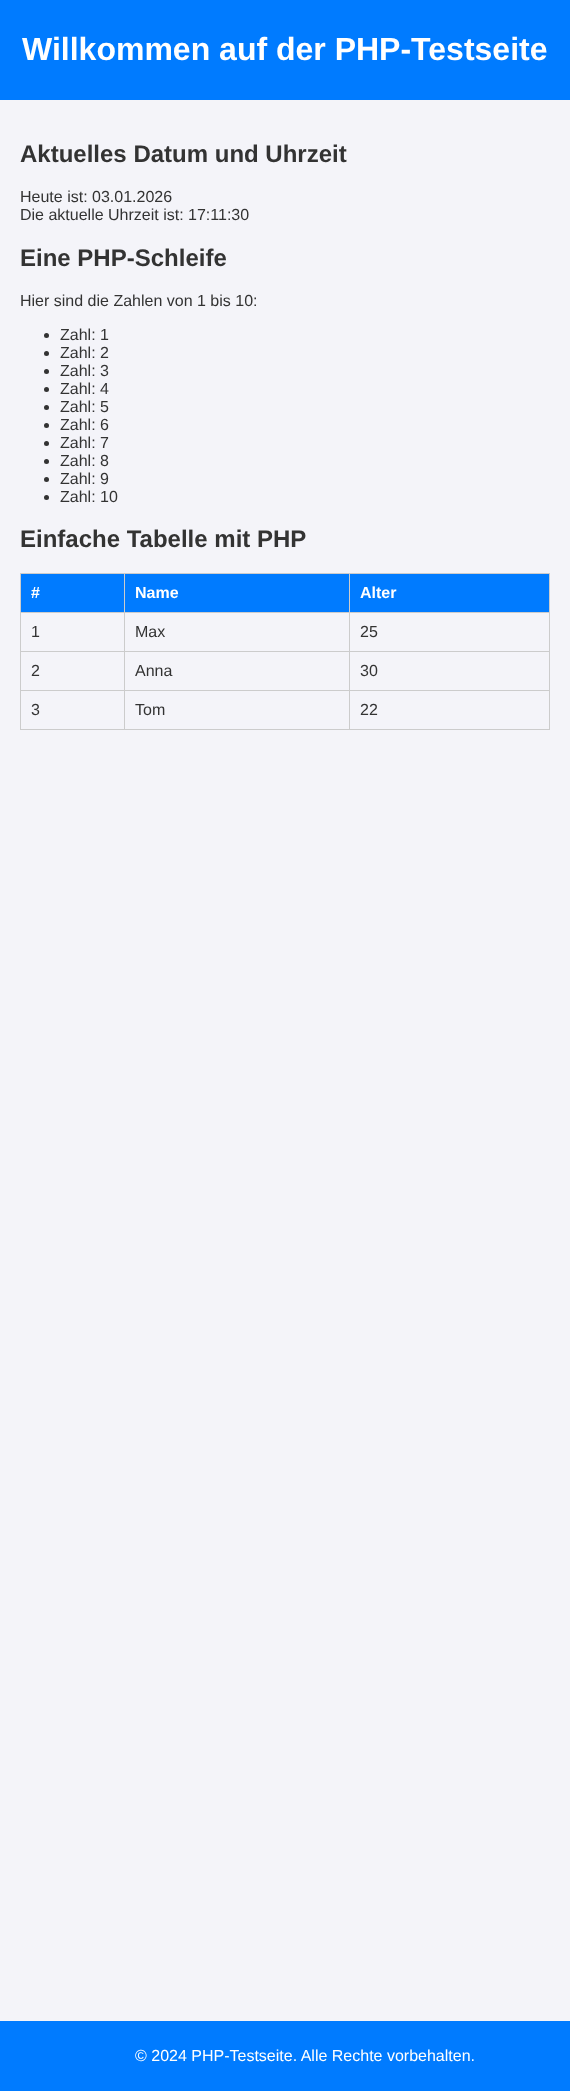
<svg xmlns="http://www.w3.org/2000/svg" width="570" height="2091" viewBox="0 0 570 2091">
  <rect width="100%" height="100%" fill="#f4f4f9"/>
  <rect x="0" y="0" width="570" height="100" fill="#007bff"/>
  <text x="22" y="60" font-family="Liberation Sans" font-size="32" font-weight="bold" fill="#ffffff">Willkommen auf der PHP-Testseite</text>
  <text x="20" y="162" font-family="Liberation Sans" font-size="24" font-weight="bold" fill="#333333">Aktuelles Datum und Uhrzeit</text>
  <text x="20" y="202" font-family="Liberation Sans" font-size="16" fill="#333333">Heute ist: 03.01.2026</text>
  <text x="20" y="220" font-family="Liberation Sans" font-size="16" fill="#333333">Die aktuelle Uhrzeit ist: 17:11:30</text>
  <text x="20" y="266" font-family="Liberation Sans" font-size="24" font-weight="bold" fill="#333333">Eine PHP-Schleife</text>
  <text x="20" y="306" font-family="Liberation Sans" font-size="16" fill="#333333">Hier sind die Zahlen von 1 bis 10:</text>
  <circle cx="46.5" cy="335.5" r="2.5" fill="#333333"/>
  <text x="60" y="340" font-family="Liberation Sans" font-size="16" fill="#333333">Zahl: 1</text>
  <circle cx="46.5" cy="353.5" r="2.5" fill="#333333"/>
  <text x="60" y="358" font-family="Liberation Sans" font-size="16" fill="#333333">Zahl: 2</text>
  <circle cx="46.5" cy="371.5" r="2.5" fill="#333333"/>
  <text x="60" y="376" font-family="Liberation Sans" font-size="16" fill="#333333">Zahl: 3</text>
  <circle cx="46.5" cy="389.5" r="2.5" fill="#333333"/>
  <text x="60" y="394" font-family="Liberation Sans" font-size="16" fill="#333333">Zahl: 4</text>
  <circle cx="46.5" cy="407.5" r="2.5" fill="#333333"/>
  <text x="60" y="412" font-family="Liberation Sans" font-size="16" fill="#333333">Zahl: 5</text>
  <circle cx="46.5" cy="425.5" r="2.5" fill="#333333"/>
  <text x="60" y="430" font-family="Liberation Sans" font-size="16" fill="#333333">Zahl: 6</text>
  <circle cx="46.5" cy="443.5" r="2.5" fill="#333333"/>
  <text x="60" y="448" font-family="Liberation Sans" font-size="16" fill="#333333">Zahl: 7</text>
  <circle cx="46.5" cy="461.5" r="2.5" fill="#333333"/>
  <text x="60" y="466" font-family="Liberation Sans" font-size="16" fill="#333333">Zahl: 8</text>
  <circle cx="46.5" cy="479.5" r="2.5" fill="#333333"/>
  <text x="60" y="484" font-family="Liberation Sans" font-size="16" fill="#333333">Zahl: 9</text>
  <circle cx="46.5" cy="497.5" r="2.5" fill="#333333"/>
  <text x="60" y="502" font-family="Liberation Sans" font-size="16" fill="#333333">Zahl: 10</text>
  <text x="20" y="547" font-family="Liberation Sans" font-size="24" font-weight="bold" fill="#333333">Einfache Tabelle mit PHP</text>
  <rect x="21" y="574" width="103" height="38" fill="#007bff"/>
  <rect x="349" y="573" width="201" height="1" fill="#cccccc"/>
  <rect x="349" y="612" width="201" height="1" fill="#cccccc"/>
  <rect x="349" y="651" width="201" height="1" fill="#cccccc"/>
  <rect x="349" y="690" width="201" height="1" fill="#cccccc"/>
  <rect x="549" y="690" width="1" height="40" fill="#cccccc"/>
  <rect x="349" y="729" width="201" height="1" fill="#cccccc"/>
  <rect x="349" y="690" width="1" height="40" fill="#cccccc"/>
  <rect x="124" y="690" width="226" height="1" fill="#cccccc"/>
  <rect x="349" y="651" width="1" height="40" fill="#cccccc"/>
  <rect x="124" y="651" width="226" height="1" fill="#cccccc"/>
  <rect x="349" y="612" width="1" height="40" fill="#cccccc"/>
  <rect x="124" y="612" width="226" height="1" fill="#cccccc"/>
  <rect x="349" y="573" width="1" height="40" fill="#cccccc"/>
  <rect x="124" y="573" width="226" height="1" fill="#cccccc"/>
  <rect x="124" y="729" width="226" height="1" fill="#cccccc"/>
  <rect x="124" y="690" width="1" height="40" fill="#cccccc"/>
  <rect x="20" y="690" width="105" height="1" fill="#cccccc"/>
  <rect x="124" y="651" width="1" height="40" fill="#cccccc"/>
  <rect x="20" y="651" width="105" height="1" fill="#cccccc"/>
  <rect x="124" y="612" width="1" height="40" fill="#cccccc"/>
  <rect x="20" y="612" width="105" height="1" fill="#cccccc"/>
  <rect x="124" y="573" width="1" height="40" fill="#cccccc"/>
  <rect x="20" y="573" width="105" height="1" fill="#cccccc"/>
  <rect x="20" y="729" width="105" height="1" fill="#cccccc"/>
  <rect x="20" y="690" width="1" height="40" fill="#cccccc"/>
  <rect x="20" y="651" width="1" height="40" fill="#cccccc"/>
  <rect x="20" y="612" width="1" height="40" fill="#cccccc"/>
  <rect x="20" y="573" width="1" height="40" fill="#cccccc"/>
  <text x="31" y="598" font-family="Liberation Sans" font-size="16" font-weight="bold" fill="#ffffff">#</text>
  <rect x="125" y="574" width="224" height="38" fill="#007bff"/>
  <text x="135" y="598" font-family="Liberation Sans" font-size="16" font-weight="bold" fill="#ffffff">Name</text>
  <rect x="350" y="574" width="199" height="38" fill="#007bff"/>
  <rect x="549" y="651" width="1" height="40" fill="#cccccc"/>
  <rect x="549" y="612" width="1" height="40" fill="#cccccc"/>
  <rect x="549" y="573" width="1" height="40" fill="#cccccc"/>
  <text x="360" y="598" font-family="Liberation Sans" font-size="16" font-weight="bold" fill="#ffffff">Alter</text>
  <text x="31" y="637" font-family="Liberation Sans" font-size="16" fill="#333333">1</text>
  <text x="135" y="637" font-family="Liberation Sans" font-size="16" fill="#333333">Max</text>
  <text x="360" y="637" font-family="Liberation Sans" font-size="16" fill="#333333">25</text>
  <text x="31" y="676" font-family="Liberation Sans" font-size="16" fill="#333333">2</text>
  <text x="135" y="676" font-family="Liberation Sans" font-size="16" fill="#333333">Anna</text>
  <text x="360" y="676" font-family="Liberation Sans" font-size="16" fill="#333333">30</text>
  <text x="31" y="715" font-family="Liberation Sans" font-size="16" fill="#333333">3</text>
  <text x="135" y="715" font-family="Liberation Sans" font-size="16" fill="#333333">Tom</text>
  <text x="360" y="715" font-family="Liberation Sans" font-size="16" fill="#333333">22</text>
  <rect x="0" y="2021" width="570" height="70" fill="#007bff"/>
  <text x="135" y="2061" font-family="Liberation Sans" font-size="16" fill="#ffffff">© 2024 PHP-Testseite. Alle Rechte vorbehalten.</text>
</svg>
